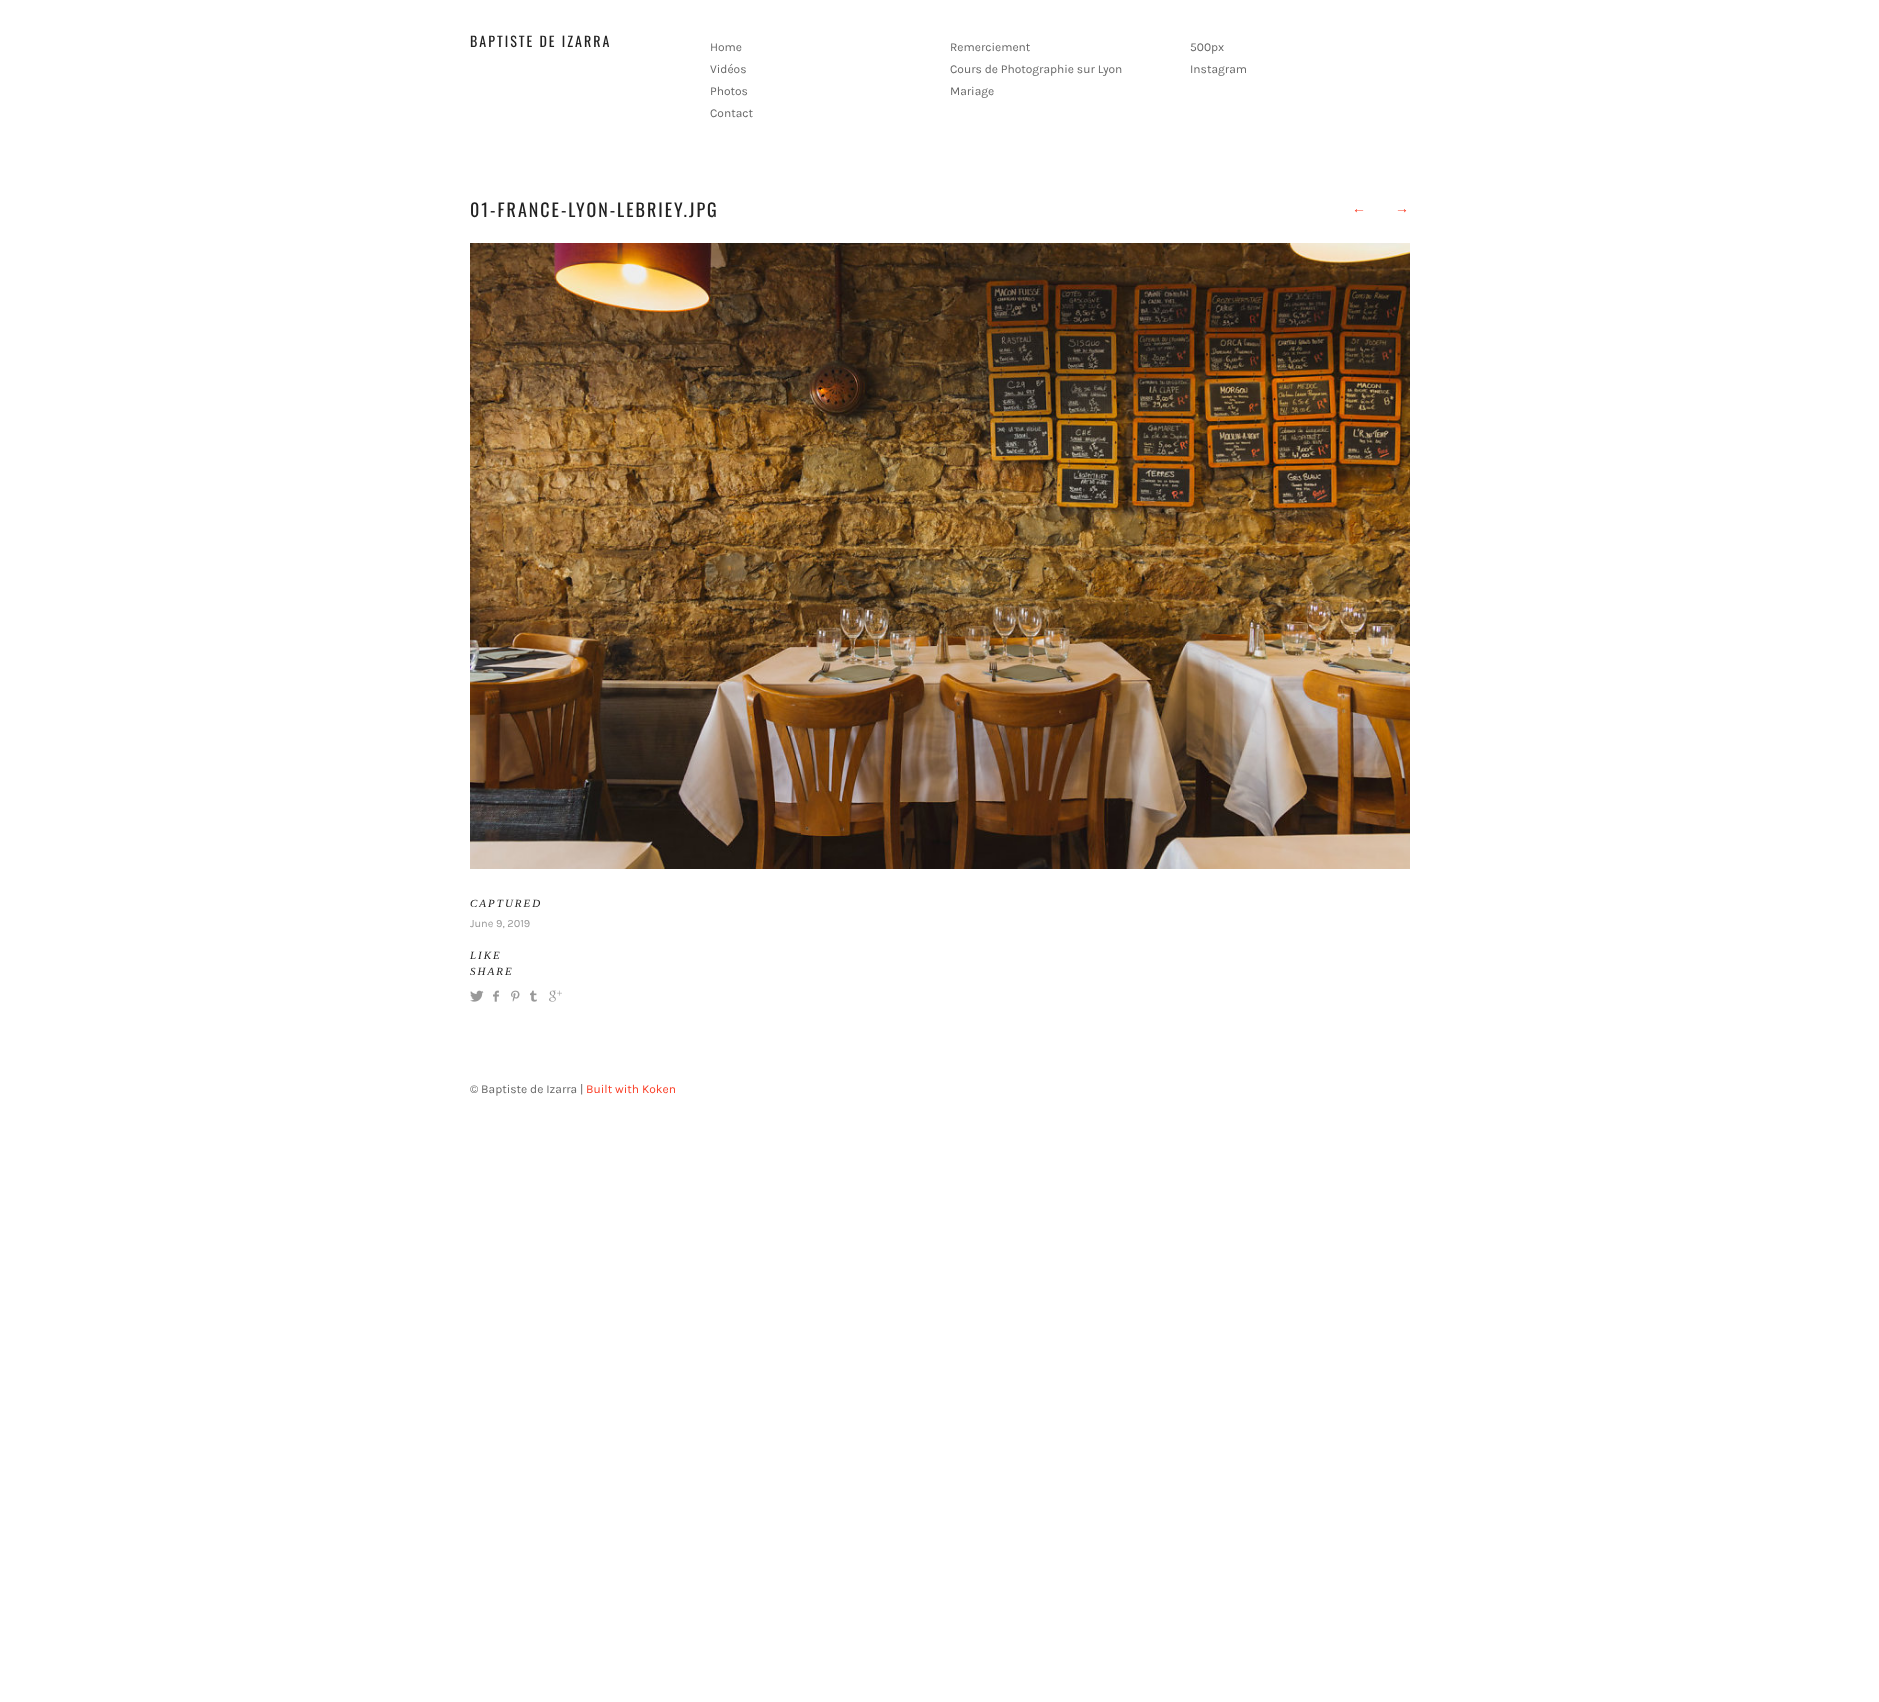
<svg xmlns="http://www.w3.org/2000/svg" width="1879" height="1702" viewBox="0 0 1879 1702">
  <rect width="100%" height="100%" fill="#ffffff"/>
  <text x="470" y="47" font-family="Oswald" font-size="14" letter-spacing="2" fill="#222222">BAPTISTE DE IZARRA</text>
  <text x="710" y="51" font-family="Karla" font-size="12" fill="#666666">Home</text>
  <text x="710" y="73" font-family="Karla" font-size="12" fill="#666666">Vidéos</text>
  <text x="710" y="95" font-family="Karla" font-size="12" fill="#666666">Photos</text>
  <text x="710" y="117" font-family="Karla" font-size="12" fill="#666666">Contact</text>
  <text x="950" y="51" font-family="Karla" font-size="12" fill="#666666">Remerciement</text>
  <text x="950" y="73" font-family="Karla" font-size="12" fill="#666666">Cours de Photographie sur Lyon</text>
  <text x="950" y="95" font-family="Karla" font-size="12" fill="#666666">Mariage</text>
  <text x="1190" y="51" font-family="Karla" font-size="12" fill="#666666">500px</text>
  <text x="1190" y="73" font-family="Karla" font-size="12" fill="#666666">Instagram</text>
  <text x="470" y="217" font-family="Oswald" font-size="18" letter-spacing="2" fill="#222222">01-FRANCE-LYON-LEBRIEY.JPG</text>
  <text x="1352" y="213" font-family="Liberation Sans" font-size="14" fill="#fa3c24">←</text>
  <text x="1395" y="213" font-family="Liberation Sans" font-size="14" fill="#fa3c24">→</text>
  <image x="470" y="243" width="940" height="626" href="img1.png"/>
  <text x="470" y="907" font-family="Liberation Serif" font-size="11" font-style="italic" letter-spacing="2" fill="#222222">CAPTURED</text>
  <text x="470" y="927" font-family="Karla" font-size="11" fill="#999999">June 9, 2019</text>
  <text x="470" y="959" font-family="Liberation Serif" font-size="11" font-style="italic" letter-spacing="2" fill="#222222">LIKE</text>
  <text x="470" y="975" font-family="Liberation Serif" font-size="11" font-style="italic" letter-spacing="2" fill="#222222">SHARE</text>
  <image x="470" y="990" width="14" height="12" href="img2.png"/>
  <image x="493" y="990" width="6" height="12" href="img3.png"/>
  <image x="511" y="990" width="9" height="12" href="img4.png"/>
  <image x="530" y="990" width="7" height="12" href="img5.png"/>
  <image x="549" y="990" width="13" height="12" href="img6.png"/>
  <text x="470" y="1093" font-family="Karla" font-size="12" fill="#666666">© Baptiste de Izarra |</text>
  <text x="586" y="1093" font-family="Karla" font-size="12" fill="#fa3c24">Built with Koken</text>
</svg>
